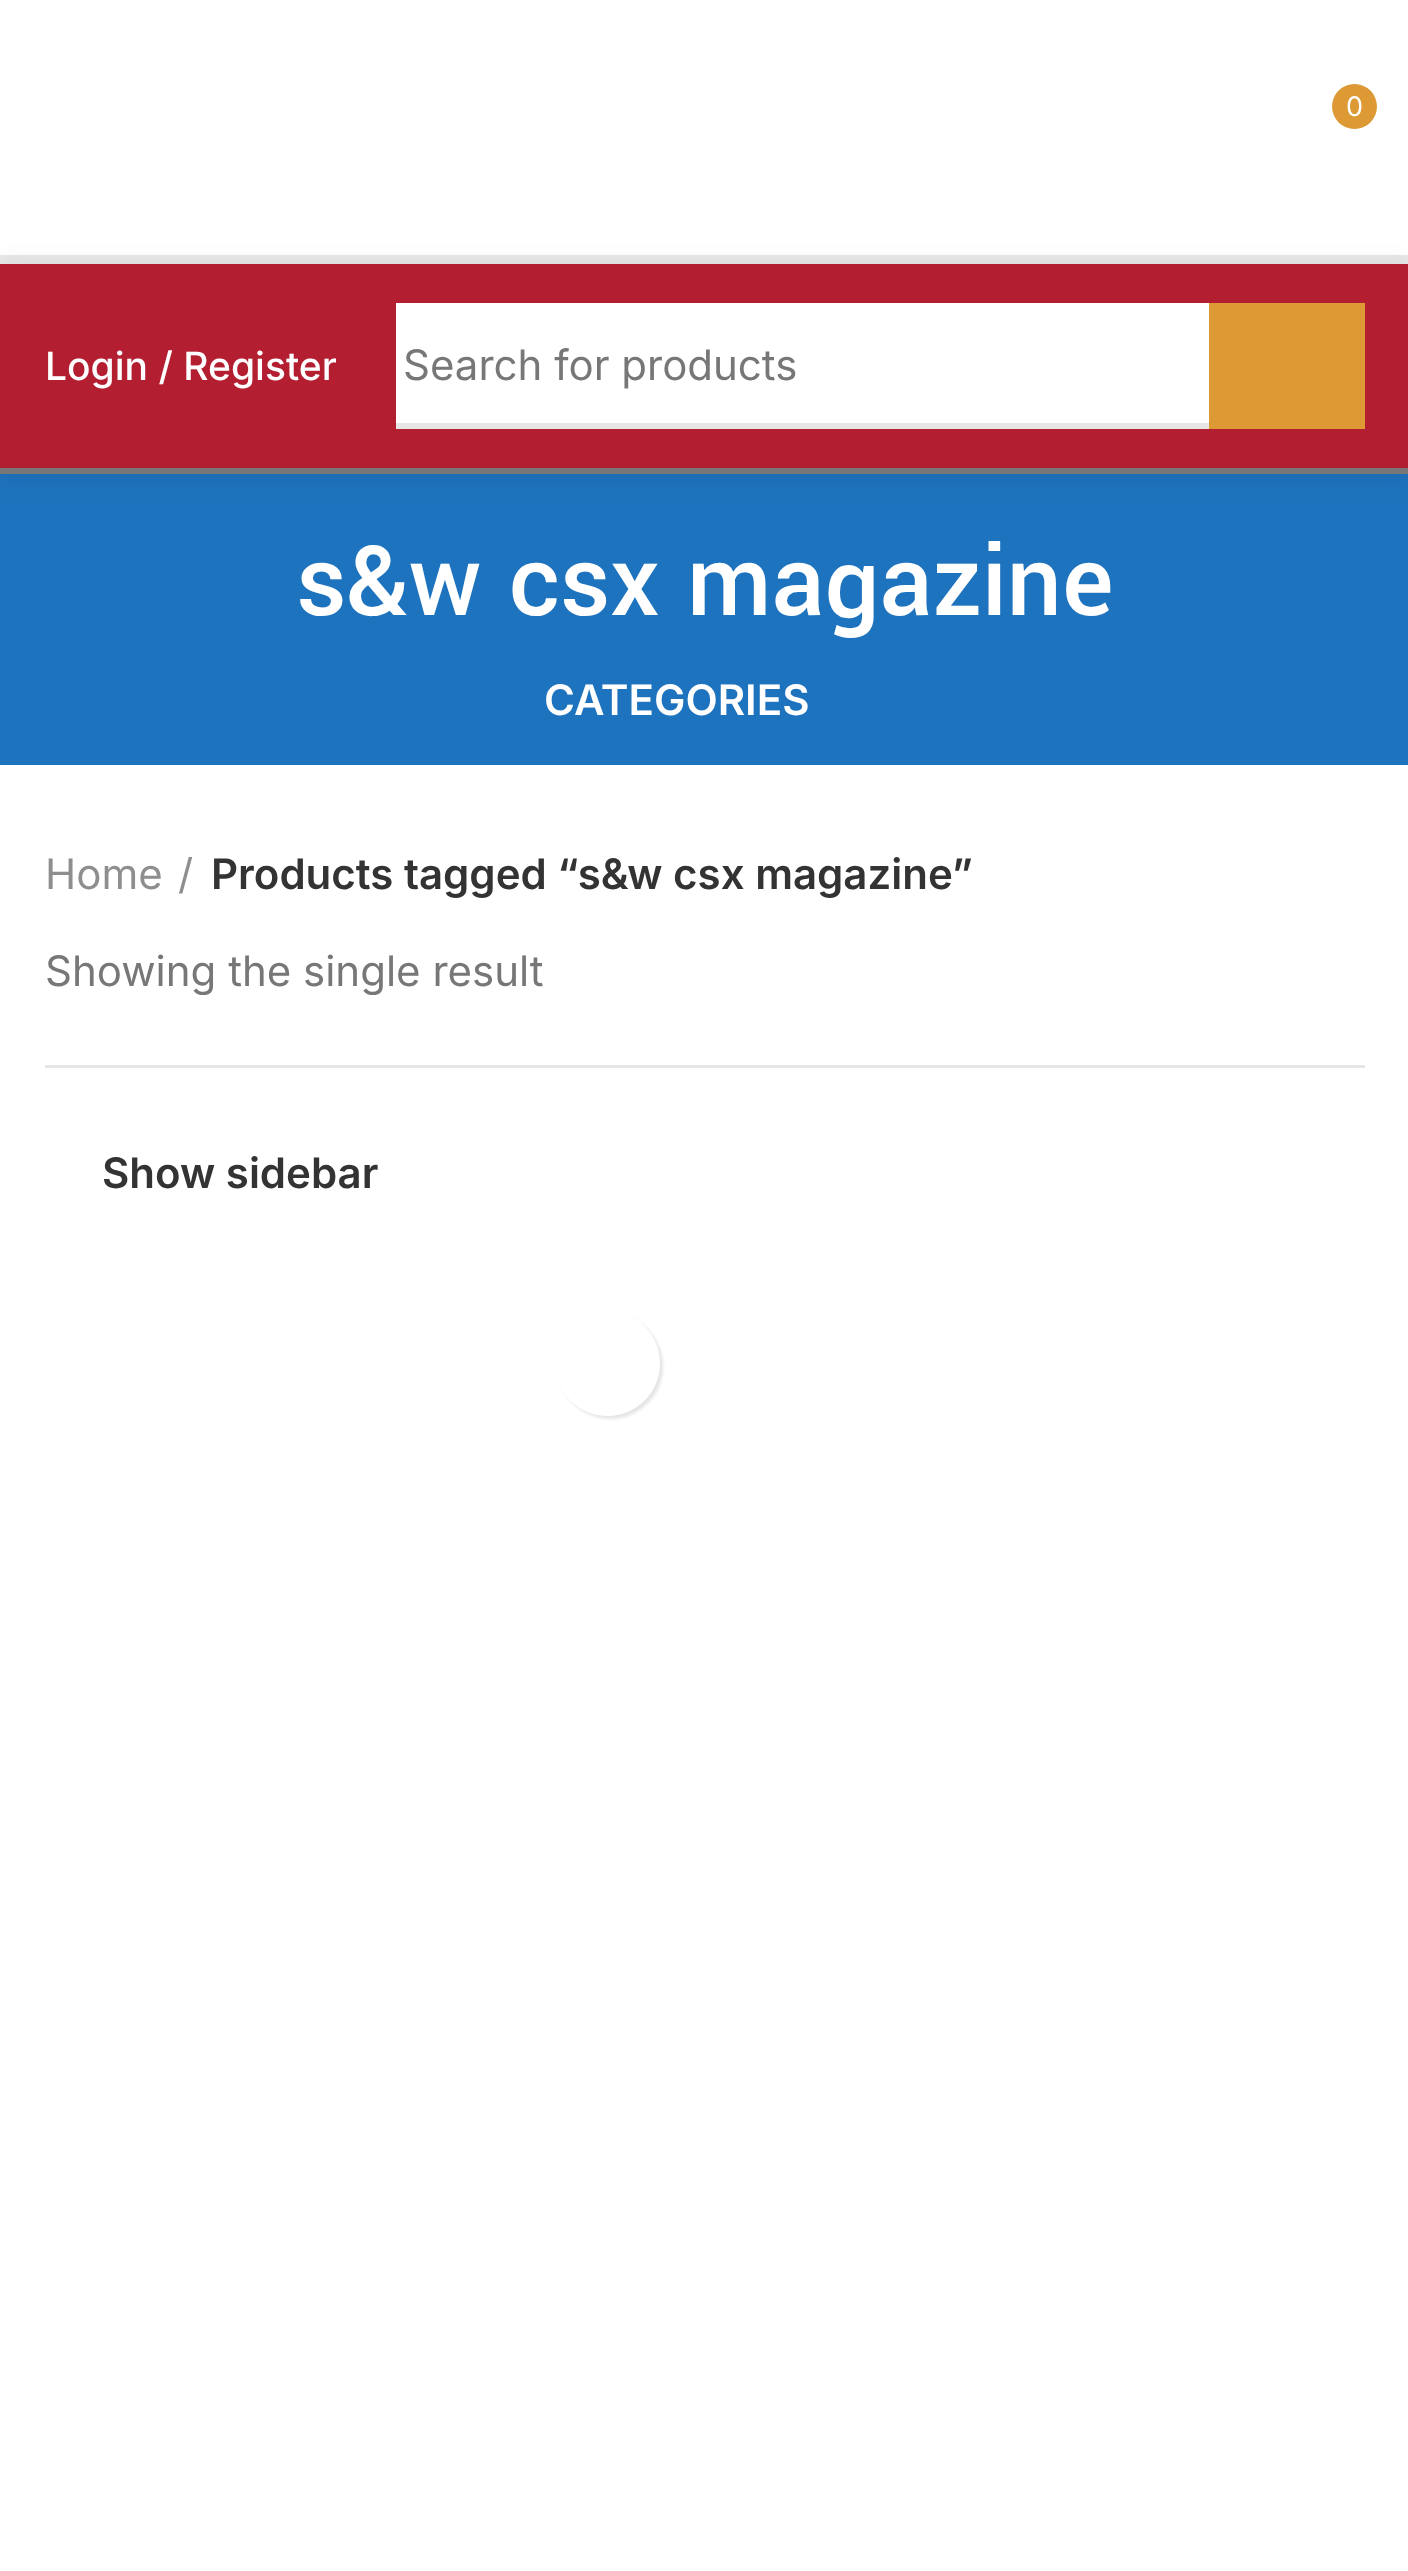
<svg xmlns="http://www.w3.org/2000/svg" width="1408" height="2571" viewBox="0 0 1408 2571">
  <defs>
    <filter id="blur1" x="-50%" y="-200%" width="200%" height="500%"><feGaussianBlur stdDeviation="12"/></filter>
    <filter id="blur2" x="-50%" y="-200%" width="200%" height="500%"><feGaussianBlur stdDeviation="1.5"/></filter>
  </defs>
  <rect width="100%" height="100%" fill="#ffffff"/>
  <rect x="0" y="255" width="1408" height="9" fill="#e8e8e8"/>
  <circle cx="1354.5" cy="106.5" r="22.5" fill="#dd9933"/>
  <text x="1346" y="116" font-family="Inter" font-size="27" fill="#ffffff">0</text>
  <rect x="0" y="474" width="1408" height="291" fill="#1e73be"/>
  <rect x="0" y="267" width="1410" height="210" fill="#000000" fill-opacity="0.1" filter="url(#blur1)"/>
  <rect x="0" y="264" width="1408" height="204" fill="#b41e31"/>
  <rect x="0" y="468" width="1408" height="6" fill="#777777"/>
  <text x="45" y="380" font-family="Inter" font-size="39" font-weight="500" fill="#ffffff">Login / Register</text>
  <rect x="396" y="303" width="813" height="120" fill="#ffffff"/>
  <rect x="396" y="423" width="813" height="6" fill="#e6e6e6"/>
  <text x="403" y="380" font-family="Inter" font-size="42" fill="#777777">Search for products</text>
  <rect x="1209" y="303" width="156" height="126" fill="#dd9933"/>
  <text x="296" y="615" font-family="Yantramanav" font-size="108" font-weight="500" fill="#ffffff">s&amp;w csx magazine</text>
  <text x="544" y="715" font-family="Inter" font-size="42" font-weight="600" fill="#ffffff">CATEGORIES</text>
  <rect x="45" y="1065" width="1320" height="3" fill="#e6e6e6"/>
  <text x="45" y="889" font-family="Inter" font-size="42" fill="#8e8e8e">Home</text>
  <text x="178" y="889" font-family="Inter" font-size="42" fill="#8e8e8e">/</text>
  <text x="211" y="889" font-family="Inter" font-size="42" font-weight="600" fill="#333333">Products tagged “s&amp;w csx magazine”</text>
  <text x="45" y="986" font-family="Inter" font-size="42" fill="#777777">Showing the single result</text>
  <text x="102" y="1188" font-family="Inter" font-size="42" font-weight="600" fill="#333333">Show sidebar</text>
  <rect x="558" y="1314" width="105" height="105" rx="52.5" fill="#000000" fill-opacity="0.1" filter="url(#blur2)"/>
  <circle cx="607.5" cy="1363.5" r="52.5" fill="#ffffff"/>
</svg>
